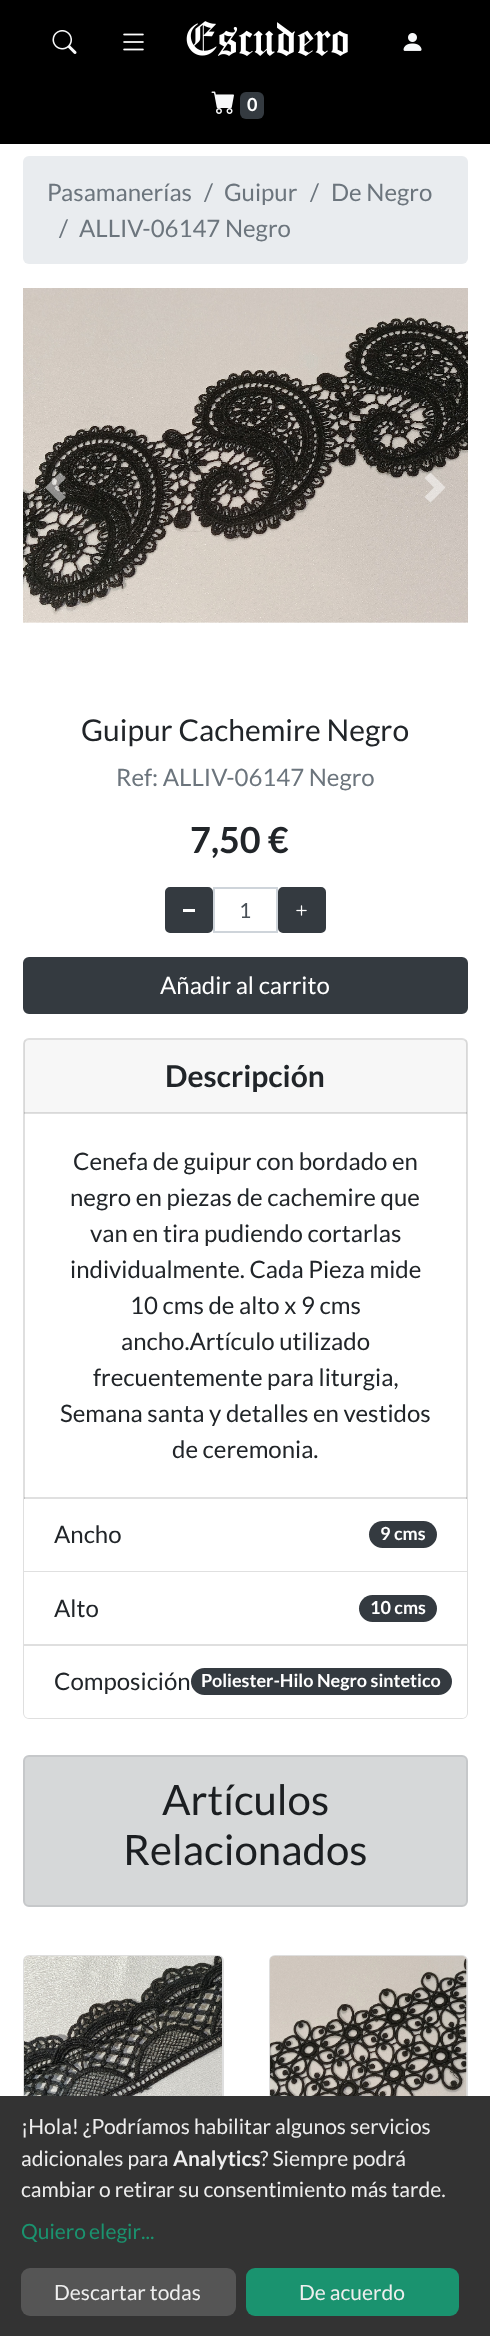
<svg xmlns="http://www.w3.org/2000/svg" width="490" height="2336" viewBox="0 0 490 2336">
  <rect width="100%" height="100%" fill="#ffffff"/>
  <rect x="0" y="0" width="490" height="144" fill="#000000"/>
  <image x="52" y="30" width="25" height="24" href="img1.png"/>
  <image x="123" y="33" width="21" height="18" href="img2.png"/>
  <image x="186" y="21" width="162" height="35" href="img3.png"/>
  <image x="403" y="33" width="19" height="18" href="img4.png"/>
  <image x="211" y="91" width="23" height="23" href="img5.png"/>
  <rect x="240" y="92" width="24" height="27" rx="6" fill="#343a40"/>
  <text x="247" y="111" font-family="Lato" font-size="18" font-weight="bold" fill="#ffffff">0</text>
  <rect x="23" y="156" width="445" height="108" rx="6" fill="#e9ecef"/>
  <text x="47" y="201" font-family="Lato" font-size="24" fill="#6c757d">Pasamanerías</text>
  <text x="204" y="201" font-family="Lato" font-size="24" fill="#6c757d">/</text>
  <text x="224" y="201" font-family="Lato" font-size="24" fill="#6c757d">Guipur</text>
  <text x="310" y="201" font-family="Lato" font-size="24" fill="#6c757d">/</text>
  <text x="331" y="201" font-family="Lato" font-size="24" fill="#6c757d">De Negro</text>
  <text x="59" y="237" font-family="Lato" font-size="24" fill="#6c757d">/</text>
  <text x="79" y="237" font-family="Lato" font-size="24" fill="#6c757d">ALLIV-06147 Negro</text>
  <image x="23" y="288" width="445" height="335" href="img6.png"/>
  <path d="M60 472.5L45 487.5L60 502.5L66 497L56.5 487.5L66 478Z" fill="#ffffff" fill-opacity="0.5"/>
  <path d="M430.5 472.5L424.5 478L434 487.5L424.5 497L430.5 502.5L445.5 487.5Z" fill="#ffffff" fill-opacity="0.5"/>
  <text x="81" y="741" font-family="Lato" font-size="30" fill="#212529">Guipur Cachemire Negro</text>
  <text x="116" y="786" font-family="Lato" font-size="24" fill="#6c757d">Ref: ALLIV-06147 Negro</text>
  <text x="190" y="853" font-family="Lato" font-size="36" font-weight="bold" fill="#212529">7,50 €</text>
  <rect x="166" y="888" width="46" height="44" rx="4" fill="#343a40" stroke="#343a40" stroke-width="2"/>
  <rect x="183" y="909" width="12" height="3" fill="#ffffff"/>
  <rect x="214" y="888" width="63" height="44" fill="none" stroke="#ced4da" stroke-width="2"/>
  <text x="239" y="918" font-family="Lato" font-size="21" fill="#495057">1</text>
  <rect x="279" y="888" width="46" height="44" rx="4" fill="#343a40" stroke="#343a40" stroke-width="2"/>
  <image x="296" y="905" width="11" height="11" href="img7.png"/>
  <rect x="24" y="958" width="443" height="55" rx="5" fill="#343a40" stroke="#343a40" stroke-width="2"/>
  <text x="160" y="994" font-family="Lato" font-size="24" fill="#ffffff">Añadir al carrito</text>
  <rect x="24" y="1039" width="443" height="679" rx="5" fill="none" stroke="#dfdfdf" stroke-width="2"/>
  <rect x="24" y="1040" width="443" height="73" fill="#000000" fill-opacity="0.03"/>
  <rect x="24" y="1112" width="443" height="2" fill="#000000" fill-opacity="0.12"/>
  <text x="165" y="1087" font-family="Lato" font-size="30" font-weight="bold" fill="#212529">Descripción</text>
  <text x="73" y="1170" font-family="Lato" font-size="24" fill="#212529">Cenefa de guipur con bordado en</text>
  <text x="70" y="1206" font-family="Lato" font-size="24" fill="#212529">negro en piezas de cachemire que</text>
  <text x="90" y="1242" font-family="Lato" font-size="24" fill="#212529">van en tira pudiendo cortarlas</text>
  <text x="70" y="1278" font-family="Lato" font-size="24" fill="#212529">individualmente. Cada Pieza mide</text>
  <text x="130" y="1314" font-family="Lato" font-size="24" fill="#212529">10 cms de alto x 9 cms</text>
  <text x="121" y="1350" font-family="Lato" font-size="24" fill="#212529">ancho.Artículo utilizado</text>
  <text x="93" y="1386" font-family="Lato" font-size="24" fill="#212529">frecuentemente para liturgia,</text>
  <text x="60" y="1422" font-family="Lato" font-size="24" fill="#212529">Semana santa y detalles en vestidos</text>
  <text x="172" y="1458" font-family="Lato" font-size="24" fill="#212529">de ceremonia.</text>
  <rect x="24" y="1497" width="443" height="2" fill="#000000" fill-opacity="0.12"/>
  <rect x="24" y="1499" width="443" height="145" fill="#ffffff"/>
  <rect x="24" y="1571" width="443" height="1" fill="#000000" fill-opacity="0.12"/>
  <text x="54" y="1543" font-family="Lato" font-size="24" fill="#212529">Ancho</text>
  <rect x="369" y="1521" width="68" height="27" rx="13.5" fill="#343a40"/>
  <text x="380" y="1540" font-family="Lato" font-size="18" font-weight="bold" fill="#ffffff">9 cms</text>
  <rect x="24" y="1644" width="443" height="2" fill="#dfdfdf"/>
  <text x="54" y="1617" font-family="Lato" font-size="24" fill="#212529">Alto</text>
  <rect x="359" y="1595" width="78" height="27" rx="13.5" fill="#343a40"/>
  <text x="370" y="1614" font-family="Lato" font-size="18" font-weight="bold" fill="#ffffff">10 cms</text>
  <path d="M24 1646H467V1713C467 1716 465 1718 462 1718H29C26 1718 24 1716 24 1713Z" fill="#ffffff"/>
  <text x="54" y="1690" font-family="Lato" font-size="24" fill="#212529">Composición</text>
  <rect x="191" y="1668" width="261" height="27" rx="13.5" fill="#343a40"/>
  <text x="201" y="1687" font-family="Lato" font-size="18" font-weight="bold" fill="#ffffff">Poliester-Hilo Negro sintetico</text>
  <rect x="24" y="1756" width="443" height="150" rx="5" fill="#d6d8d9" stroke="#c6c8ca" stroke-width="2"/>
  <text x="162" y="1815" font-family="Lato" font-size="42" fill="#1b1e21">Artículos</text>
  <text x="123" y="1865" font-family="Lato" font-size="42" fill="#1b1e21">Relacionados</text>
  <rect x="24" y="1956" width="199" height="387" rx="5" fill="none" stroke="#dfdfdf" stroke-width="2"/>
  <image x="24" y="1956" width="198" height="140" href="img8.png"/>
  <rect x="270" y="1956" width="197" height="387" rx="5" fill="none" stroke="#dfdfdf" stroke-width="2"/>
  <image x="270" y="1956" width="197" height="140" href="img9.png"/>
  <rect x="0" y="2096" width="490" height="240" fill="#333333"/>
  <text x="21" y="2134" font-family="Lato" font-size="21" fill="#eeeeee">¡Hola! ¿Podríamos habilitar algunos servicios</text>
  <text x="21" y="2166" font-family="Lato" font-size="21" fill="#eeeeee">adicionales para</text>
  <text x="173" y="2166" font-family="Lato" font-size="21" font-weight="bold" fill="#eeeeee">Analytics</text>
  <text x="260" y="2166" font-family="Lato" font-size="21" fill="#eeeeee">? Siempre podrá</text>
  <text x="21" y="2197" font-family="Lato" font-size="21" fill="#eeeeee">cambiar o retirar su consentimiento más tarde.</text>
  <text x="21" y="2239" word-spacing="-1" font-family="Lato" font-size="21" fill="#1a936f">Quiero elegir</text>
  <text x="141" y="2239" font-family="Lato" font-size="21" fill="#1a936f">...</text>
  <rect x="21" y="2268" width="215" height="48" rx="9" fill="#555555"/>
  <text x="54" y="2300" font-family="Lato" font-size="21" fill="#eeeeee">Descartar todas</text>
  <rect x="246" y="2268" width="213" height="48" rx="9" fill="#1a936f"/>
  <text x="299" y="2300" font-family="Lato" font-size="21" fill="#eeeeee">De acuerdo</text>
</svg>
